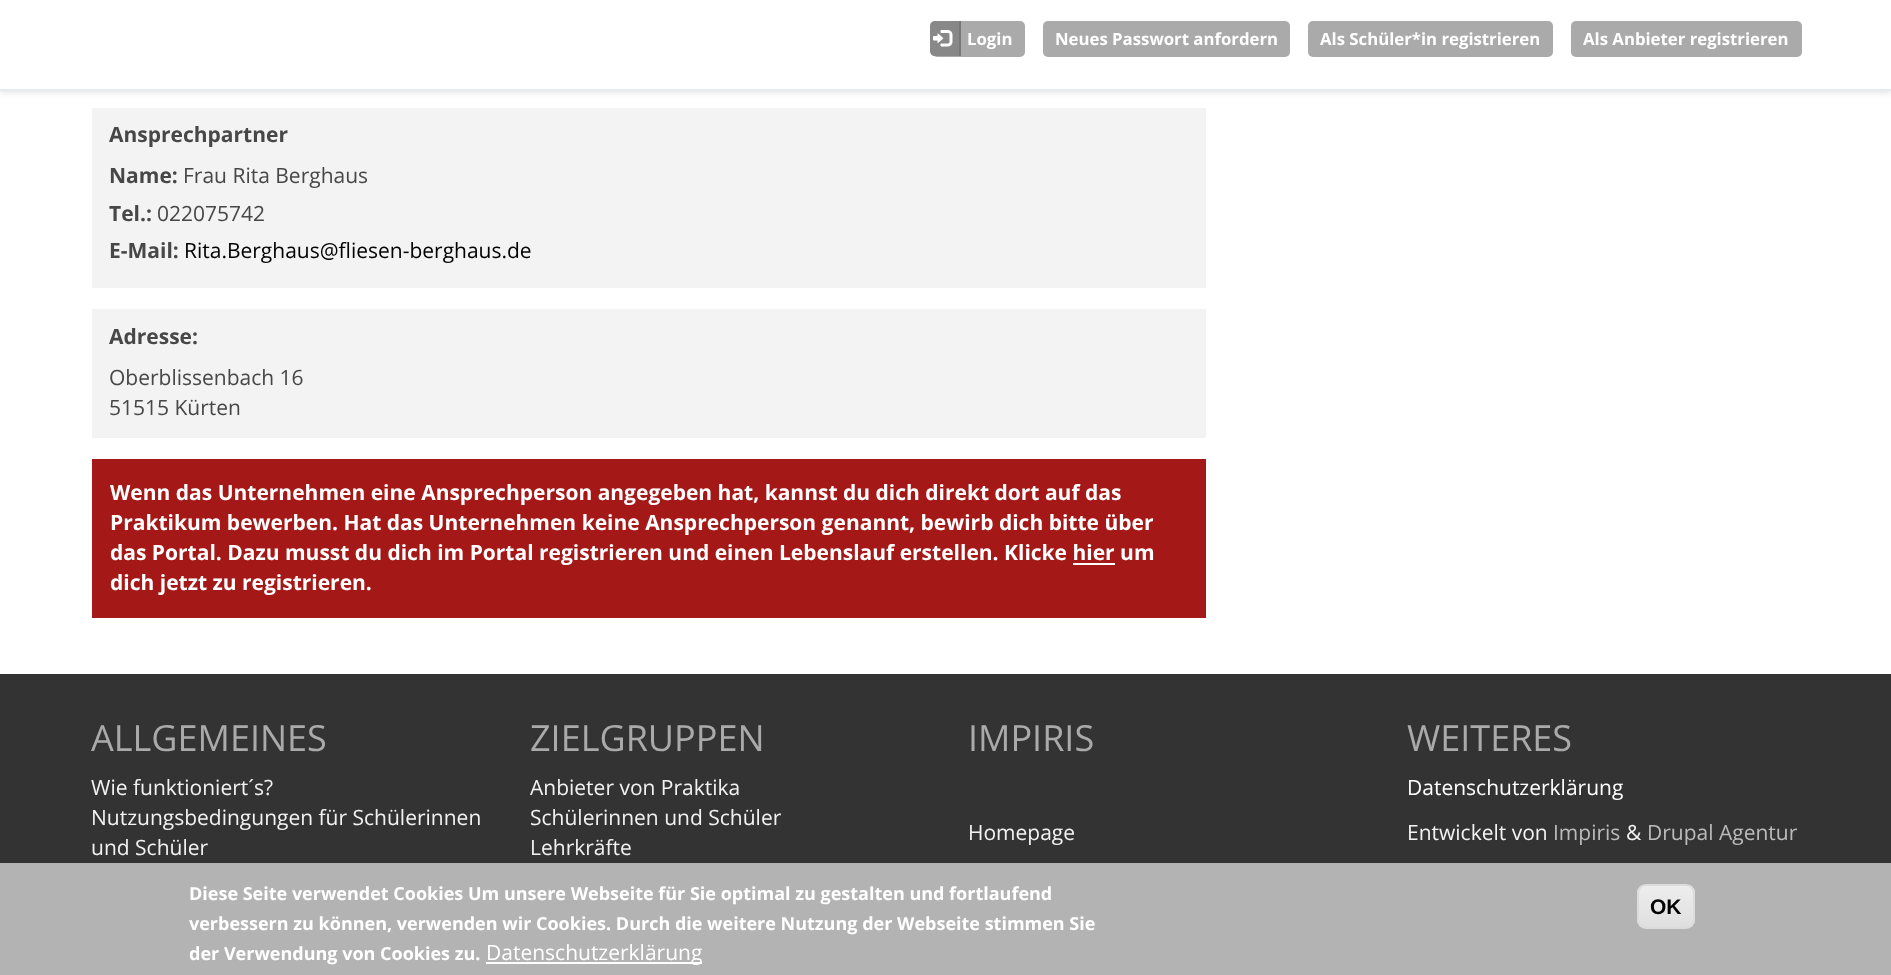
<svg xmlns="http://www.w3.org/2000/svg" width="1891" height="975" viewBox="0 0 1891 975">
  <defs>
    <filter id="blur1" x="-50%" y="-200%" width="200%" height="500%"><feGaussianBlur stdDeviation="4.5"/></filter>
    <clipPath id="clip1"><rect x="1637" y="884" width="58" height="45" rx="9"/></clipPath>
    <linearGradient id="g1" gradientUnits="userSpaceOnUse" x1="1666" y1="885" x2="1666" y2="927"><stop offset="0.05" stop-color="#ededed"/><stop offset="1" stop-color="#dfdfdf"/></linearGradient>
  </defs>
  <rect width="100%" height="100%" fill="#ffffff"/>
  <rect x="0" y="0" width="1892" height="90" fill="#cccccc" filter="url(#blur1)"/>
  <rect x="0" y="0" width="1891" height="89" fill="#ffffff"/>
  <rect x="0" y="89" width="1891" height="2" fill="#e7eaec"/>
  <rect x="932" y="21" width="93" height="36" rx="5" fill="#aaaaaa"/>
  <path d="M935 21H960V56H935C932 56 930 54 930 51V26C930 23 932 21 935 21Z" fill="#888888"/>
  <rect x="959" y="21" width="2" height="35" fill="#777777"/>
  <image x="933" y="30" width="20" height="17" href="img1.png"/>
  <text x="967" y="45" font-family="Open Sans" font-size="16.75" font-weight="bold" fill="#ffffff">Login</text>
  <rect x="1043" y="21" width="247" height="36" rx="5" fill="#aaaaaa"/>
  <text x="1055" y="45" font-family="Open Sans" font-size="16.75" font-weight="bold" fill="#ffffff">Neues Passwort anfordern</text>
  <rect x="1308" y="21" width="245" height="36" rx="5" fill="#aaaaaa"/>
  <text x="1320" y="45" font-family="Open Sans" font-size="16.75" font-weight="bold" fill="#ffffff">Als Schüler*in registrieren</text>
  <rect x="1571" y="21" width="231" height="36" rx="5" fill="#aaaaaa"/>
  <text x="1583" y="45" font-family="Open Sans" font-size="16.75" font-weight="bold" fill="#ffffff">Als Anbieter registrieren</text>
  <rect x="92" y="108" width="1114" height="180" fill="#f3f3f3"/>
  <text x="109" y="142" font-family="Open Sans" font-size="21" font-weight="bold" fill="#474747">Ansprechpartner</text>
  <text x="109" y="183" font-family="Open Sans" font-size="21" font-weight="bold" fill="#474747">Name:</text>
  <text x="183" y="183" font-family="Open Sans" font-size="21" fill="#474747">Frau Rita Berghaus</text>
  <text x="109" y="221" font-family="Open Sans" font-size="21" font-weight="bold" fill="#474747">Tel.:</text>
  <text x="157" y="221" font-family="Open Sans" font-size="21" fill="#474747">022075742</text>
  <text x="109" y="258" font-family="Open Sans" font-size="21" font-weight="bold" fill="#474747">E-Mail:</text>
  <text x="184" y="258" font-family="Open Sans" font-size="21" fill="#000000">Rita.Berghaus@fliesen-berghaus.de</text>
  <rect x="92" y="309" width="1114" height="129" fill="#f3f3f3"/>
  <text x="109" y="344" font-family="Open Sans" font-size="21" font-weight="bold" fill="#474747">Adresse:</text>
  <text x="109" y="385" font-family="Open Sans" font-size="21" fill="#474747">Oberblissenbach 16</text>
  <text x="109" y="415" font-family="Open Sans" font-size="21" fill="#474747">51515 Kürten</text>
  <rect x="92" y="459" width="1114" height="159" fill="#a51818"/>
  <text x="110" y="500" font-family="Open Sans" font-size="21" font-weight="bold" fill="#ffffff">Wenn das Unternehmen eine Ansprechperson angegeben hat, kannst du dich direkt dort auf das</text>
  <text x="110" y="530" font-family="Open Sans" font-size="21" font-weight="bold" fill="#ffffff">Praktikum bewerben. Hat das Unternehmen keine Ansprechperson genannt, bewirb dich bitte über</text>
  <text x="110" y="560" font-family="Open Sans" font-size="21" font-weight="bold" fill="#ffffff">das Portal. Dazu musst du dich im Portal registrieren und einen Lebenslauf erstellen. Klicke hier um</text>
  <rect x="1073" y="563" width="42" height="2" fill="#ffffff"/>
  <text x="110" y="590" font-family="Open Sans" font-size="21" font-weight="bold" fill="#ffffff">dich jetzt zu registrieren.</text>
  <rect x="0" y="674" width="1891" height="189" fill="#333333"/>
  <text x="91" y="751" font-family="Open Sans" font-size="36" fill="#aaaaaa">ALLGEMEINES</text>
  <text x="91" y="795" font-family="Open Sans" font-size="21" fill="#f2f2f2">Wie funktioniert´s?</text>
  <text x="91" y="825" font-family="Open Sans" font-size="21" fill="#f2f2f2">Nutzungsbedingungen für Schülerinnen</text>
  <text x="91" y="855" font-family="Open Sans" font-size="21" fill="#f2f2f2">und Schüler</text>
  <text x="530" y="751" font-family="Open Sans" font-size="36" fill="#aaaaaa">ZIELGRUPPEN</text>
  <text x="530" y="795" font-family="Open Sans" font-size="21" fill="#f2f2f2">Anbieter von Praktika</text>
  <text x="530" y="825" font-family="Open Sans" font-size="21" fill="#f2f2f2">Schülerinnen und Schüler</text>
  <text x="530" y="855" font-family="Open Sans" font-size="21" fill="#f2f2f2">Lehrkräfte</text>
  <text x="968" y="751" font-family="Open Sans" font-size="36" fill="#aaaaaa">IMPIRIS</text>
  <text x="968" y="840" font-family="Open Sans" font-size="21" fill="#f2f2f2">Homepage</text>
  <text x="1407" y="751" font-family="Open Sans" font-size="36" fill="#aaaaaa">WEITERES</text>
  <text x="1407" y="795" font-family="Open Sans" font-size="21" fill="#ffffff">Datenschutzerklärung</text>
  <text x="1407" y="840" font-family="Open Sans" font-size="21" fill="#f2f2f2">Entwickelt von</text>
  <text x="1553" y="840" font-family="Open Sans" font-size="21" fill="#bbbbbb">Impiris</text>
  <text x="1626" y="840" font-family="Open Sans" font-size="21" fill="#f2f2f2">&amp;</text>
  <text x="1647" y="840" font-family="Open Sans" font-size="21" fill="#bbbbbb">Drupal Agentur</text>
  <rect x="0" y="863" width="1891" height="112" fill="#b3b3b3"/>
  <text x="189" y="900" font-family="Open Sans" font-size="18" font-weight="bold" fill="#ffffff">Diese Seite verwendet Cookies Um unsere Webseite für Sie optimal zu gestalten und fortlaufend</text>
  <text x="189" y="930" font-family="Open Sans" font-size="18" font-weight="bold" fill="#ffffff">verbessern zu können, verwenden wir Cookies. Durch die weitere Nutzung der Webseite stimmen Sie</text>
  <text x="189" y="960" font-family="Open Sans" font-size="18" font-weight="bold" fill="#ffffff">der Verwendung von Cookies zu.</text>
  <rect x="486" y="962" width="216" height="2" fill="#ffffff"/>
  <text x="486" y="960" font-family="Open Sans" font-size="21" fill="#ffffff">Datenschutzerklärung</text>
  <g clip-path="url(#clip1)">
    <rect x="1637" y="885" width="58" height="42" fill="url(#g1)"/>
  </g>
  <rect x="1638" y="885" width="56" height="43" rx="8" fill="none" stroke="#dcdcdc" stroke-width="2"/>
  <text x="1650" y="914" font-family="Liberation Sans" font-size="21" font-weight="bold" fill="#000000">OK</text>
</svg>
